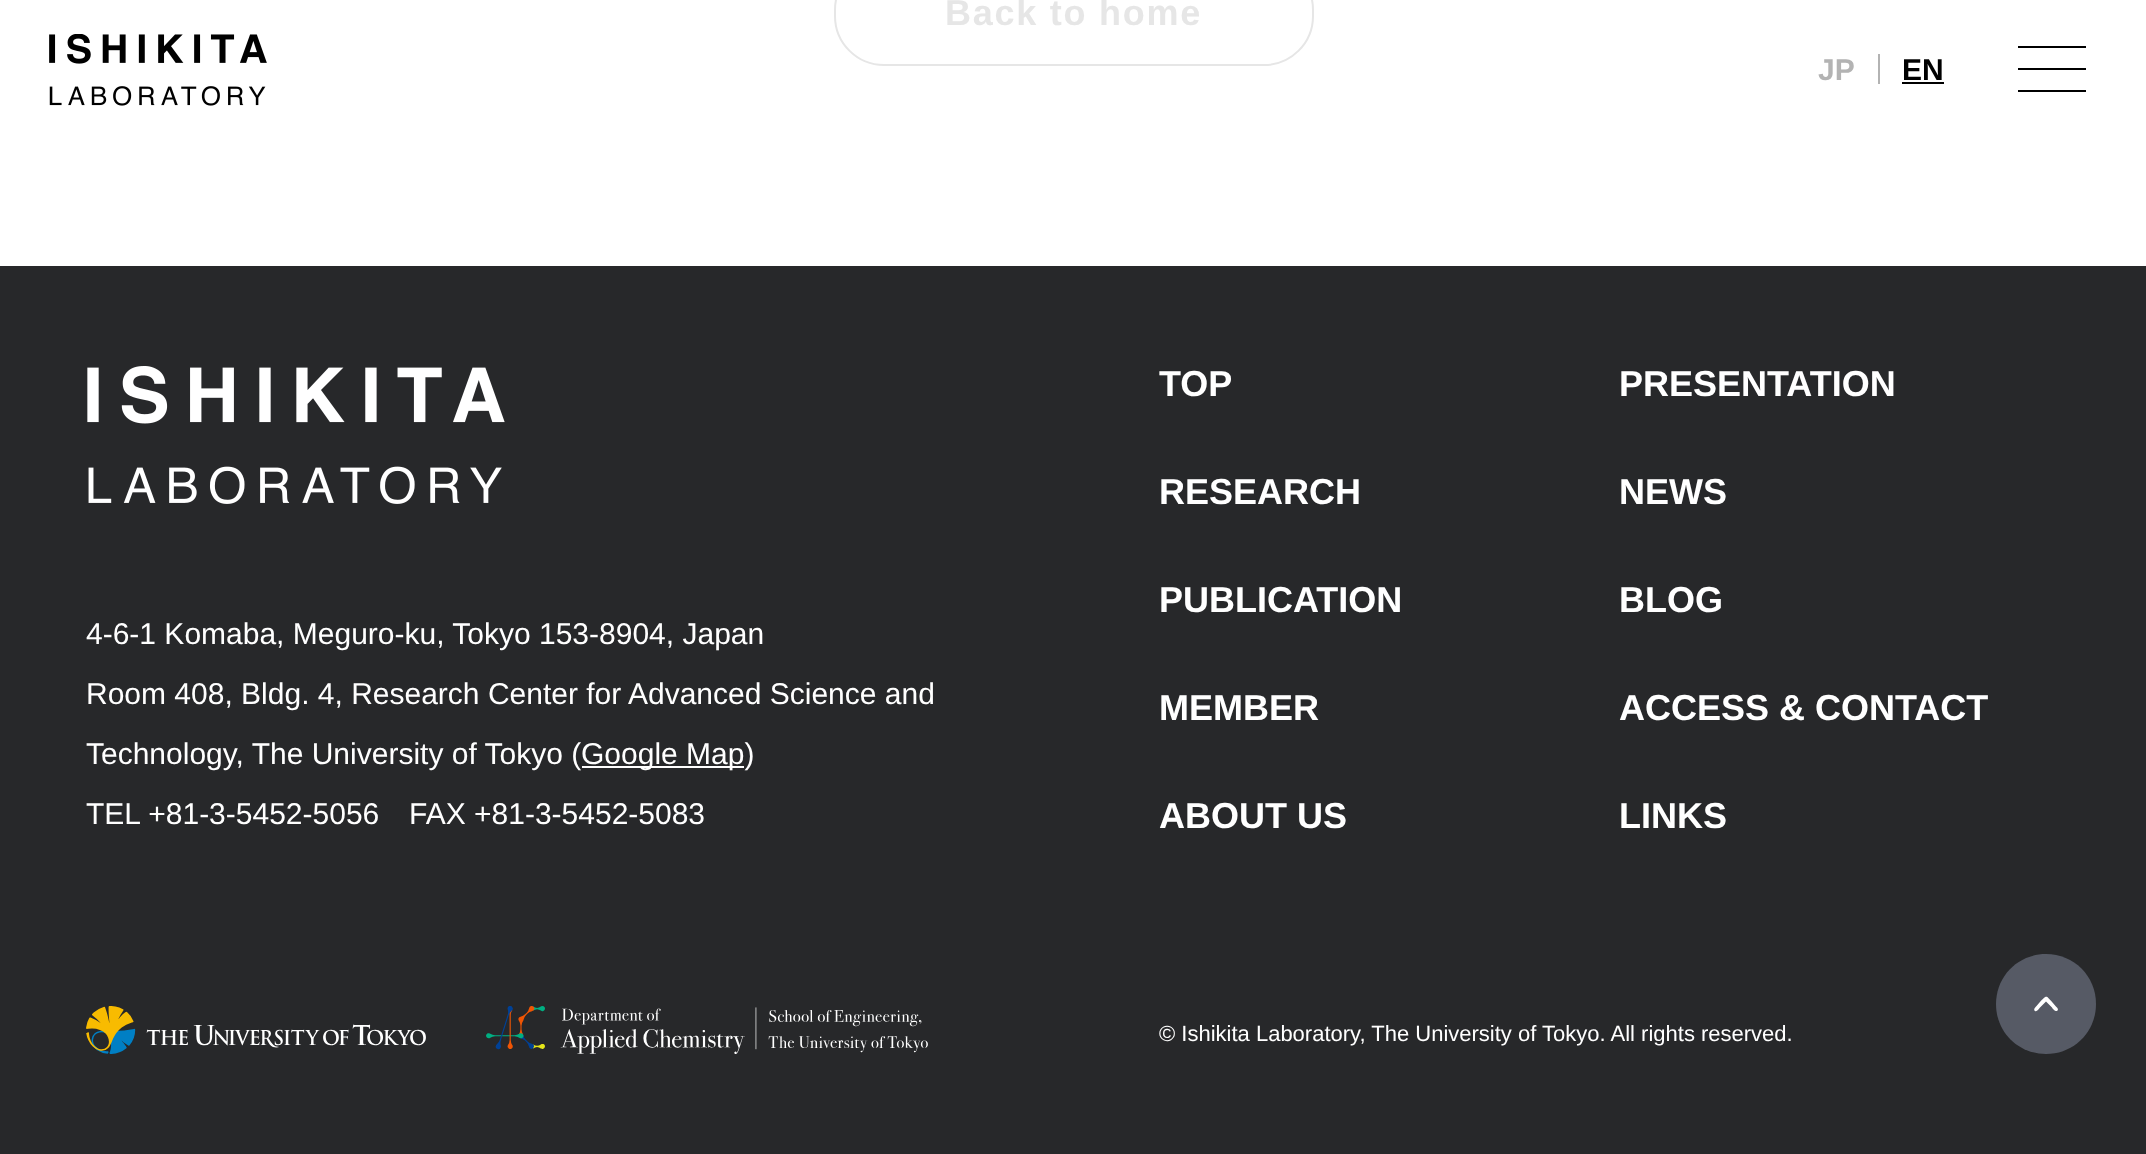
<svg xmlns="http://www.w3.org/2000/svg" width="2146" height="1154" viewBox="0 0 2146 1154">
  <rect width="100%" height="100%" fill="#ffffff"/>
  <rect x="835" y="-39" width="478" height="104" rx="49" fill="none" stroke="#e6e6e6" stroke-width="2"/>
  <text x="945" y="25" font-family="Liberation Sans" font-size="36" font-weight="bold" letter-spacing="1.75" fill="#e6e6e6">Back to home</text>
  <image x="49" y="34" width="218" height="72" href="img1.png"/>
  <text x="1818" y="80" font-family="Liberation Sans" font-size="30" font-weight="bold" fill="#b3b3b3">JP</text>
  <rect x="1878" y="54" width="2" height="30" fill="#b3b3b3"/>
  <text x="1902" y="80" font-family="Liberation Sans" font-size="30" font-weight="bold" fill="#000000">EN</text>
  <rect x="1902" y="82" width="42" height="2" fill="#000000"/>
  <rect x="2018" y="46" width="68" height="2" fill="#000000"/>
  <rect x="2018" y="68" width="68" height="2" fill="#000000"/>
  <rect x="2018" y="90" width="68" height="2" fill="#000000"/>
  <rect x="0" y="266" width="2146" height="888" fill="#27282a"/>
  <image x="87" y="366" width="418" height="138" href="img2.png"/>
  <text x="86" y="644" font-family="Liberation Sans" font-size="30" fill="#ffffff">4-6-1 Komaba, Meguro-ku, Tokyo 153-8904, Japan</text>
  <text x="86" y="704" font-family="Liberation Sans" font-size="30" fill="#ffffff">Room 408, Bldg. 4, Research Center for Advanced Science and</text>
  <text x="86" y="764" font-family="Liberation Sans" font-size="30" fill="#ffffff">Technology, The University of Tokyo (</text>
  <rect x="582" y="766" width="162" height="2" fill="#ffffff"/>
  <text x="581" y="764" font-family="Liberation Sans" font-size="30" fill="#ffffff">Google Map)</text>
  <text x="86" y="824" font-family="Liberation Sans" font-size="30" fill="#ffffff">TEL +81-3-5452-5056</text>
  <text x="409" y="824" font-family="Liberation Sans" font-size="30" fill="#ffffff">FAX +81-3-5452-5083</text>
  <text x="1159" y="396" font-family="Liberation Sans" font-size="36" font-weight="bold" fill="#ffffff">TOP</text>
  <text x="1619" y="396" font-family="Liberation Sans" font-size="36" font-weight="bold" fill="#ffffff">PRESENTATION</text>
  <text x="1159" y="504" font-family="Liberation Sans" font-size="36" font-weight="bold" fill="#ffffff">RESEARCH</text>
  <text x="1619" y="504" font-family="Liberation Sans" font-size="36" font-weight="bold" fill="#ffffff">NEWS</text>
  <text x="1159" y="612" font-family="Liberation Sans" font-size="36" font-weight="bold" fill="#ffffff">PUBLICATION</text>
  <text x="1619" y="612" font-family="Liberation Sans" font-size="36" font-weight="bold" fill="#ffffff">BLOG</text>
  <text x="1159" y="720" font-family="Liberation Sans" font-size="36" font-weight="bold" fill="#ffffff">MEMBER</text>
  <text x="1619" y="720" font-family="Liberation Sans" font-size="36" font-weight="bold" fill="#ffffff">ACCESS &amp; CONTACT</text>
  <text x="1159" y="828" font-family="Liberation Sans" font-size="36" font-weight="bold" fill="#ffffff">ABOUT US</text>
  <text x="1619" y="828" font-family="Liberation Sans" font-size="36" font-weight="bold" fill="#ffffff">LINKS</text>
  <image x="86" y="1006" width="340" height="48" href="img3.png"/>
  <image x="486" y="1006" width="442" height="48" href="img4.png"/>
  <text x="1159" y="1041" font-family="Liberation Sans" font-size="22" fill="#ffffff">© Ishikita Laboratory, The University of Tokyo. All rights reserved.</text>
  <path d="M2046 954C2074 954 2096 976 2096 1004C2096 1032 2074 1054 2046 1054C2018 1054 1996 1032 1996 1004C1996 976 2018 954 2046 954Z" fill="#565a65" fill-rule="evenodd"/>
  <path d="M2057.5 1010.5C2055.5 1012.5 2052.5 1008.5 2052 1007.5L2046 1001.5L2040 1007.5C2039 1008.5 2037 1012 2035 1011C2033 1009.5 2035.5 1007 2036.5 1006L2039.5 1002.5C2047.5 994.5 2045.5 995.5 2052.5 1002.5L2055.5 1006C2056.5 1007 2059 1009 2057.5 1010.5Z" fill="#ffffff" fill-rule="evenodd"/>
</svg>
